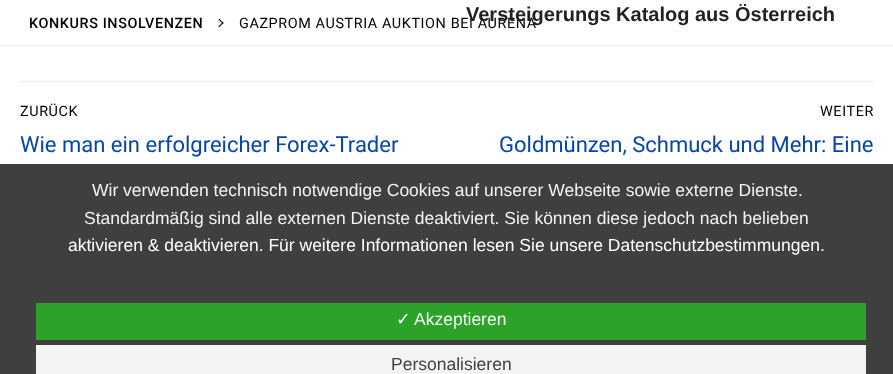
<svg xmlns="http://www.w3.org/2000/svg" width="893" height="374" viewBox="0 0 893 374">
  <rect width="100%" height="100%" fill="#ffffff"/>
  <rect x="0" y="164" width="893" height="210" fill="#3f3f3f"/>
  <text x="239" y="28" font-family="Roboto" font-size="14.4" letter-spacing="0.6" fill="#000000">GAZPROM AUSTRIA AUKTION BEI AURENA</text>
  <text x="466" y="21" font-family="Liberation Sans" font-size="20" font-weight="bold" fill="#222222">Versteigerungs Katalog aus Österreich</text>
  <rect x="0" y="45" width="893" height="1" fill="#eaecee"/>
  <text x="29" y="28" font-family="Roboto" font-size="14.4" font-weight="500" letter-spacing="0.6" fill="#000000">KONKURS INSOLVENZEN</text>
  <path d="M223.5 23L219 27.5L218.5 26.5L223 22Z" fill="#000000"/>
  <path d="M223.5 23L223 24L218.5 19.5L219 18.5Z" fill="#000000"/>
  <rect x="20" y="81" width="854" height="1" fill="#eaecee"/>
  <text x="20" y="116" font-family="Roboto" font-size="14.4" letter-spacing="0.6" fill="#000000">ZURÜCK</text>
  <text x="20" y="152" font-family="Roboto" font-size="22" fill="#0645ad">Wie man ein erfolgreicher Forex-Trader</text>
  <text x="820" y="116" font-family="Roboto" font-size="14.4" letter-spacing="0.6" fill="#000000">WEITER</text>
  <text x="499" y="152" font-family="Roboto" font-size="22" fill="#0645ad">Goldmünzen, Schmuck und Mehr: Eine</text>
  <text x="92" y="196" font-family="Liberation Sans" font-size="17.5" fill="#f3f3f3">Wir verwenden technisch notwendige Cookies auf unserer Webseite sowie externe Dienste.</text>
  <text x="84" y="224" font-family="Liberation Sans" font-size="17.5" fill="#f3f3f3">Standardmäßig sind alle externen Dienste deaktiviert. Sie können diese jedoch nach belieben</text>
  <text x="68" y="251" font-family="Liberation Sans" font-size="17.5" fill="#ffffff">aktivieren &amp; deaktivieren. Für weitere Informationen lesen Sie unsere Datenschutzbestimmungen.</text>
  <rect x="36" y="303" width="830" height="37" fill="#2caa27" fill-opacity="0.94"/>
  <text x="396" y="325" font-family="DejaVu Sans" font-size="17.5" fill="#ffffff">✓</text>
  <text x="414" y="325" font-family="Liberation Sans" font-size="17.5" fill="#f2f9f2">Akzeptieren</text>
  <rect x="36" y="345" width="830" height="29" fill="#ffffff" fill-opacity="0.94"/>
  <text x="391" y="370" font-family="Liberation Sans" font-size="17.5" fill="#3f3f3f">Personalisieren</text>
</svg>
